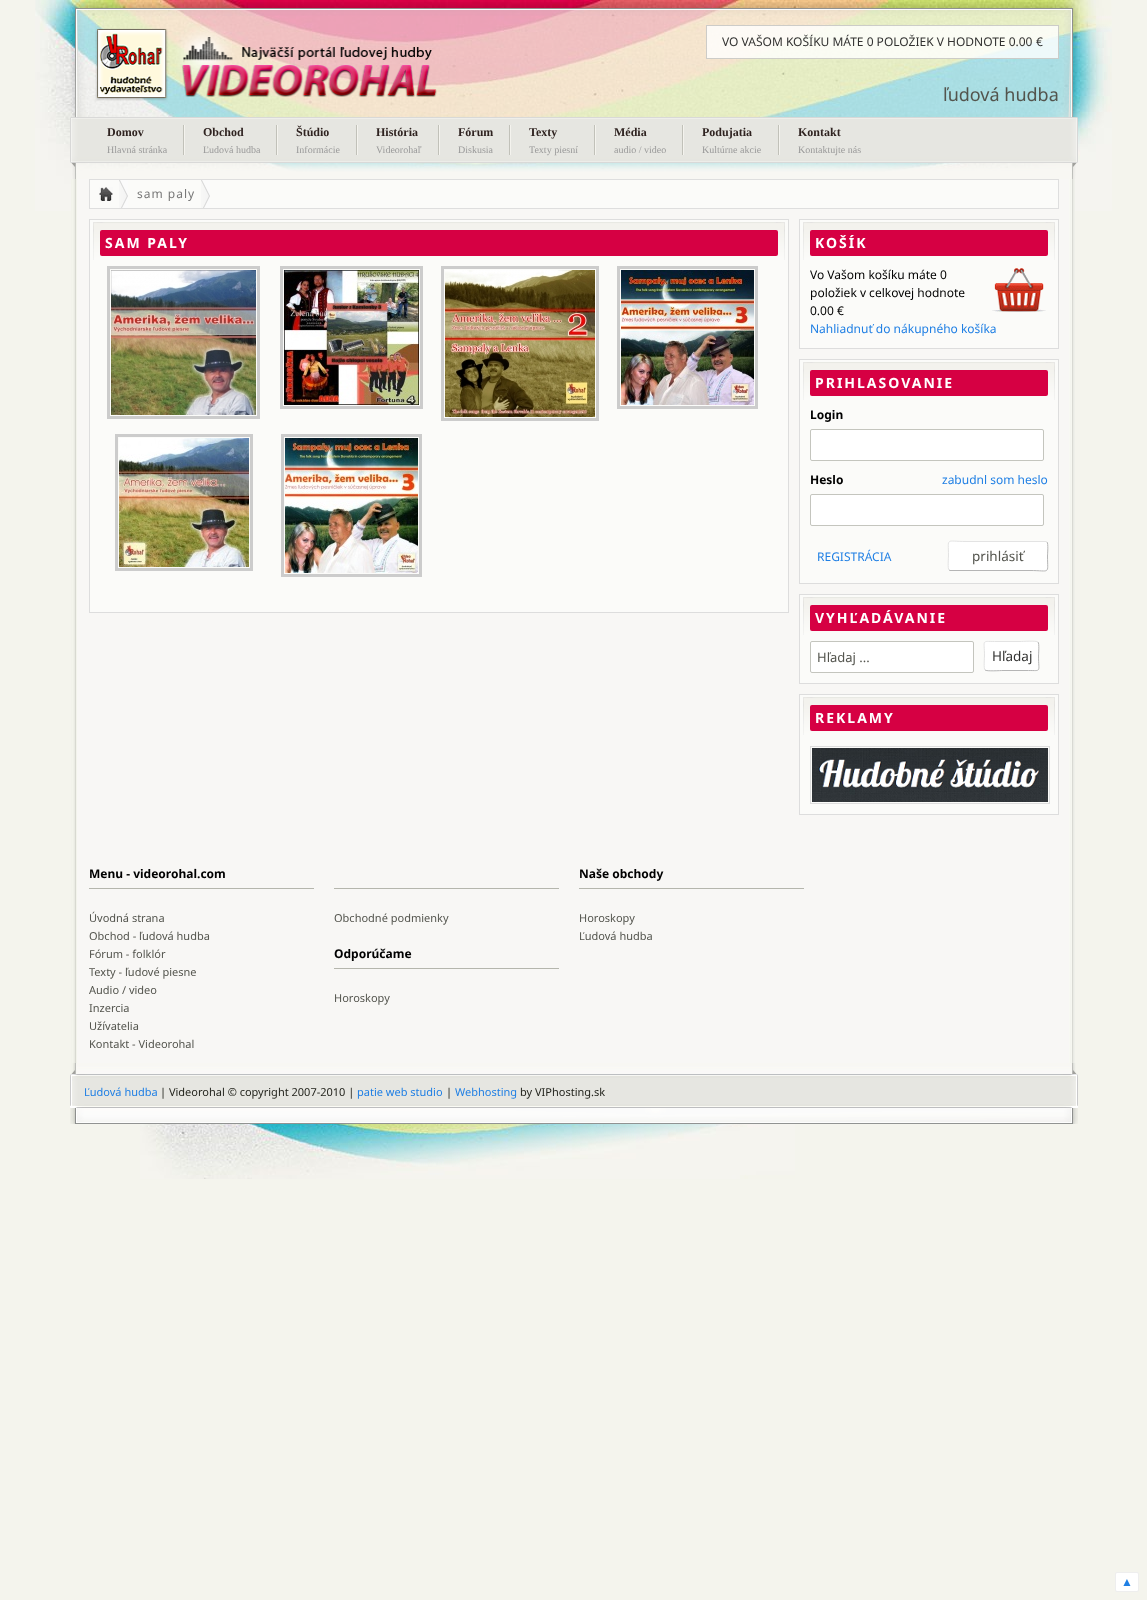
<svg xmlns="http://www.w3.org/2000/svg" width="1147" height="1600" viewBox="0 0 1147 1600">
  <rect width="100%" height="100%" fill="#f4f4ed"/>
  <image x="140" y="1124" width="655" height="55" href="img1.png"/>
  <image x="35" y="0" width="1077" height="211" href="img2.png"/>
  <image x="70" y="2" width="1008" height="177" href="img3.png"/>
  <image x="95" y="26" width="342" height="75" href="img4.png"/>
  <rect x="706" y="25" width="353" height="34" fill="#ffffff" fill-opacity="0.8"/>
  <rect x="706.5" y="25.5" width="352" height="33" fill="none" stroke="#c0c0bd" stroke-opacity="0.8"/>
  <text x="722" y="46" font-family="Noto Sans" font-size="12" fill="#323231">VO VAŠOM KOŠÍKU MÁTE 0 POLOŽIEK V HODNOTE 0.00</text>
  <text x="1036" y="46" font-family="Noto Sans" font-size="12" fill="#323231">€</text>
  <text x="943" y="101" font-family="Noto Sans" font-size="18" fill="#53544d">ľudová hudba</text>
  <image x="183" y="125" width="2" height="30" href="img5.png"/>
  <text x="107" y="136" font-family="Liberation Serif" font-size="12" font-weight="bold" fill="#2f2320">Domov</text>
  <text x="107" y="153" font-family="Liberation Serif" font-size="10" fill="#999999">Hlavná stránka</text>
  <image x="276" y="125" width="2" height="30" href="img5.png"/>
  <text x="203" y="136" font-family="Liberation Serif" font-size="12" font-weight="bold" fill="#2f2320">Obchod</text>
  <text x="203" y="153" font-family="Liberation Serif" font-size="10" fill="#999999">Ľudová hudba</text>
  <image x="356" y="125" width="2" height="30" href="img5.png"/>
  <text x="296" y="136" font-family="Liberation Serif" font-size="12" font-weight="bold" fill="#2f2320">Štúdio</text>
  <text x="296" y="153" font-family="Liberation Serif" font-size="10" fill="#999999">Informácie</text>
  <image x="438" y="125" width="2" height="30" href="img5.png"/>
  <text x="376" y="136" font-family="Liberation Serif" font-size="12" font-weight="bold" fill="#2f2320">História</text>
  <text x="376" y="153" font-family="Liberation Serif" font-size="10" fill="#999999">Videorohaľ</text>
  <image x="509" y="125" width="2" height="30" href="img5.png"/>
  <text x="458" y="136" font-family="Liberation Serif" font-size="12" font-weight="bold" fill="#2f2320">Fórum</text>
  <text x="458" y="153" font-family="Liberation Serif" font-size="10" fill="#999999">Diskusia</text>
  <image x="594" y="125" width="2" height="30" href="img5.png"/>
  <text x="529" y="136" font-family="Liberation Serif" font-size="12" font-weight="bold" fill="#2f2320">Texty</text>
  <text x="529" y="153" font-family="Liberation Serif" font-size="10" fill="#999999">Texty piesní</text>
  <image x="682" y="125" width="2" height="30" href="img5.png"/>
  <text x="614" y="136" font-family="Liberation Serif" font-size="12" font-weight="bold" fill="#2f2320">Média</text>
  <text x="614" y="153" font-family="Liberation Serif" font-size="10" fill="#999999">audio / video</text>
  <image x="778" y="125" width="2" height="30" href="img5.png"/>
  <text x="702" y="136" font-family="Liberation Serif" font-size="12" font-weight="bold" fill="#2f2320">Podujatia</text>
  <text x="702" y="153" font-family="Liberation Serif" font-size="10" fill="#999999">Kultúrne akcie</text>
  <text x="798" y="136" font-family="Liberation Serif" font-size="12" font-weight="bold" fill="#2f2320">Kontakt</text>
  <text x="798" y="153" font-family="Liberation Serif" font-size="10" fill="#999999">Kontaktujte nás</text>
  <image x="71" y="179" width="1004" height="945" href="img6.png"/>
  <rect x="89.5" y="179.5" width="969" height="29" fill="#fbfbf9" stroke="#dedede"/>
  <image x="119" y="180" width="9" height="28" href="img7.png"/>
  <image x="99" y="187" width="14" height="14" href="img8.png"/>
  <image x="201" y="180" width="9" height="28" href="img7.png"/>
  <text x="137" y="198" font-family="Noto Sans" font-size="12" letter-spacing="1" fill="#777777">sam paly</text>
  <rect x="90" y="220" width="698" height="392" fill="#fbfbf9"/>
  <image x="93" y="222" width="692" height="38" href="img9.png"/>
  <rect x="89.5" y="219.5" width="699" height="393" fill="none" stroke="#dddddd"/>
  <rect x="100" y="230" width="678" height="26" rx="2" fill="#d60043"/>
  <text x="105" y="248" font-family="Noto Sans" font-size="14" font-weight="bold" letter-spacing="2" fill="#ffffff">SAM PALY</text>
  <rect x="108.5" y="267.5" width="150" height="150" fill="none" stroke="#cccccc" stroke-width="3"/>
  <image x="111" y="270" width="145" height="145" href="img10.png"/>
  <rect x="281.5" y="267.5" width="140" height="140" fill="none" stroke="#cccccc" stroke-width="3"/>
  <image x="284" y="270" width="135" height="135" href="img11.png"/>
  <rect x="442.5" y="267.5" width="155" height="152" fill="none" stroke="#cccccc" stroke-width="3"/>
  <image x="445" y="270" width="150" height="147" href="img12.png"/>
  <rect x="618.5" y="267.5" width="138" height="140" fill="none" stroke="#cccccc" stroke-width="3"/>
  <image x="621" y="270" width="133" height="135" href="img13.png"/>
  <rect x="116.5" y="435.5" width="135" height="134" fill="none" stroke="#cccccc" stroke-width="3"/>
  <image x="119" y="438" width="130" height="129" href="img14.png"/>
  <rect x="282.5" y="435.5" width="138" height="140" fill="none" stroke="#cccccc" stroke-width="3"/>
  <image x="285" y="438" width="133" height="135" href="img15.png"/>
  <rect x="800" y="220" width="258" height="128" fill="#fbfbf9"/>
  <image x="803" y="222" width="252" height="38" href="img16.png"/>
  <rect x="799.5" y="219.5" width="259" height="129" fill="none" stroke="#dddddd"/>
  <rect x="810" y="230" width="238" height="26" rx="2" fill="#d60043"/>
  <text x="815" y="248" font-family="Noto Sans" font-size="14" font-weight="bold" letter-spacing="2" fill="#ffffff">KOŠÍK</text>
  <text x="810" y="279" font-family="Noto Sans" font-size="12" fill="#000000">Vo Vašom košíku máte 0</text>
  <image x="992" y="267" width="54" height="45" href="img17.png"/>
  <text x="810" y="297" font-family="Noto Sans" font-size="12" fill="#000000">položiek v celkovej hodnote</text>
  <text x="810" y="315" font-family="Noto Sans" font-size="12" fill="#000000">0.00 €</text>
  <text x="810" y="333" font-family="Noto Sans" font-size="12" fill="#1f7fe4">Nahliadnuť do nákupného košíka</text>
  <rect x="800" y="360" width="258" height="223" fill="#fbfbf9"/>
  <image x="803" y="362" width="252" height="38" href="img16.png"/>
  <rect x="799.5" y="359.5" width="259" height="224" fill="none" stroke="#dddddd"/>
  <rect x="810" y="370" width="238" height="26" rx="2" fill="#d60043"/>
  <text x="815" y="388" font-family="Noto Sans" font-size="14" font-weight="bold" letter-spacing="2" fill="#ffffff">PRIHLASOVANIE</text>
  <text x="810" y="419" font-family="Noto Sans" font-size="12" font-weight="bold" fill="#000000">Login</text>
  <rect x="810.5" y="429.5" width="233" height="31" rx="1.5" fill="#ffffff" stroke="#c4c5be"/>
  <text x="810" y="484" font-family="Noto Sans" font-size="12" font-weight="bold" fill="#000000">Heslo</text>
  <text x="942" y="484" font-family="Noto Sans" font-size="12" fill="#1f7fe4">zabudnl som heslo</text>
  <rect x="810.5" y="494.5" width="233" height="31" rx="1.5" fill="#ffffff" stroke="#c4c5be"/>
  <text x="817" y="561" font-family="Noto Sans" font-size="12" fill="#1f7fe4">REGISTRÁCIA</text>
  <rect x="948" y="541" width="100" height="30" rx="2" fill="#ffffff"/>
  <path d="M1047 542C1048.5 543.5 1047.5 554 1047.5 556C1047.5 575 1051 570.5 1030 570.5H950L949 570" fill="none" stroke="#b5b5b5"/>
  <path d="M949 570C947.5 568.5 948.5 558 948.5 556C948.5 537 945 541.5 966 541.5H1046L1047 542" fill="none" stroke="#e3e3e3"/>
  <text x="972" y="561" font-family="Noto Sans" font-size="13.5" fill="#53544d">prihlásiť</text>
  <rect x="800" y="595" width="258" height="88" fill="#fbfbf9"/>
  <image x="803" y="597" width="252" height="38" href="img16.png"/>
  <rect x="799.5" y="594.5" width="259" height="89" fill="none" stroke="#dddddd"/>
  <rect x="810" y="605" width="238" height="26" rx="2" fill="#d60043"/>
  <text x="815" y="623" font-family="Noto Sans" font-size="14" font-weight="bold" letter-spacing="2" fill="#ffffff">VYHĽADÁVANIE</text>
  <rect x="810.5" y="641.5" width="163" height="31" rx="1.5" fill="#ffffff" stroke="#c4c5be"/>
  <text x="817" y="662" font-family="Noto Sans" font-size="13" fill="#53544d">Hľadaj ...</text>
  <rect x="984" y="641" width="55" height="30" rx="2" fill="#ffffff"/>
  <path d="M1038 642C1039.5 643.5 1038.5 654 1038.5 656C1038.5 672.5 1042 670.5 1028.5 670.5H1003C1001 670.5 986.5 671.5 985 670" fill="none" stroke="#b5b5b5"/>
  <path d="M985 670C983.5 668.5 984.5 658 984.5 656C984.5 639.5 981 641.5 994.5 641.5H1020C1022 641.5 1036.5 640.5 1038 642" fill="none" stroke="#e3e3e3"/>
  <text x="992" y="661" font-family="Noto Sans" font-size="13.5" fill="#323231">Hľadaj</text>
  <rect x="800" y="695" width="258" height="119" fill="#fbfbf9"/>
  <image x="803" y="697" width="252" height="38" href="img16.png"/>
  <rect x="799.5" y="694.5" width="259" height="120" fill="none" stroke="#dddddd"/>
  <rect x="810" y="705" width="238" height="26" rx="2" fill="#d60043"/>
  <text x="815" y="723" font-family="Noto Sans" font-size="14" font-weight="bold" letter-spacing="2" fill="#ffffff">REKLAMY</text>
  <rect x="810.5" y="746.5" width="239" height="57" fill="none" stroke="#dddddd"/>
  <image x="812" y="748" width="236" height="54" href="img18.png"/>
  <rect x="89" y="888" width="225" height="1" fill="#b5b6ad"/>
  <text x="89" y="878" font-family="Noto Sans" font-size="12" font-weight="bold" fill="#000000">Menu - videorohal.com</text>
  <text x="89" y="922" font-family="Noto Sans" font-size="11" fill="#53544d">Úvodná strana</text>
  <text x="89" y="940" font-family="Noto Sans" font-size="11" fill="#53544d">Obchod - ľudová hudba</text>
  <text x="89" y="958" font-family="Noto Sans" font-size="11" fill="#53544d">Fórum - folklór</text>
  <text x="89" y="976" font-family="Noto Sans" font-size="11" fill="#53544d">Texty - ľudové piesne</text>
  <text x="89" y="994" font-family="Noto Sans" font-size="11" fill="#53544d">Audio / video</text>
  <text x="89" y="1012" font-family="Noto Sans" font-size="11" fill="#53544d">Inzercia</text>
  <text x="89" y="1030" font-family="Noto Sans" font-size="11" fill="#53544d">Užívatelia</text>
  <text x="89" y="1048" font-family="Noto Sans" font-size="11" fill="#53544d">Kontakt - Videorohal</text>
  <rect x="334" y="888" width="225" height="1" fill="#b5b6ad"/>
  <text x="334" y="922" font-family="Noto Sans" font-size="11" fill="#53544d">Obchodné podmienky</text>
  <rect x="579" y="888" width="225" height="1" fill="#b5b6ad"/>
  <text x="579" y="878" font-family="Noto Sans" font-size="12" font-weight="bold" fill="#000000">Naše obchody</text>
  <text x="579" y="922" font-family="Noto Sans" font-size="11" fill="#53544d">Horoskopy</text>
  <text x="579" y="940" font-family="Noto Sans" font-size="11" fill="#53544d">Ľudová hudba</text>
  <rect x="334" y="968" width="225" height="1" fill="#b5b6ad"/>
  <text x="334" y="958" font-family="Noto Sans" font-size="12" font-weight="bold" fill="#000000">Odporúčame</text>
  <text x="334" y="1002" font-family="Noto Sans" font-size="11" fill="#53544d">Horoskopy</text>
  <image x="70" y="1063" width="1008" height="61" href="img19.png"/>
  <text x="84" y="1096" font-family="Noto Sans" font-size="11" fill="#1f7fe4">Ľudová hudba</text>
  <text x="160" y="1096" font-family="Noto Sans" font-size="11" fill="#23241d">| Videorohal © copyright 2007-2010 |</text>
  <text x="357" y="1096" font-family="Noto Sans" font-size="11" fill="#1f7fe4">patie web studio</text>
  <text x="446" y="1096" font-family="Noto Sans" font-size="11" fill="#23241d">|</text>
  <text x="455" y="1096" font-family="Noto Sans" font-size="11" fill="#1f7fe4">Webhosting</text>
  <text x="520" y="1096" font-family="Noto Sans" font-size="11" fill="#23241d">by VIPhosting.sk</text>
  <rect x="1115.5" y="1572.5" width="23" height="19" rx="1.5" fill="#ffffff" stroke="#eeeeee"/>
  <text x="1121" y="1586" font-family="Liberation Sans" font-size="12" fill="#1f7fe4">▲</text>
</svg>
